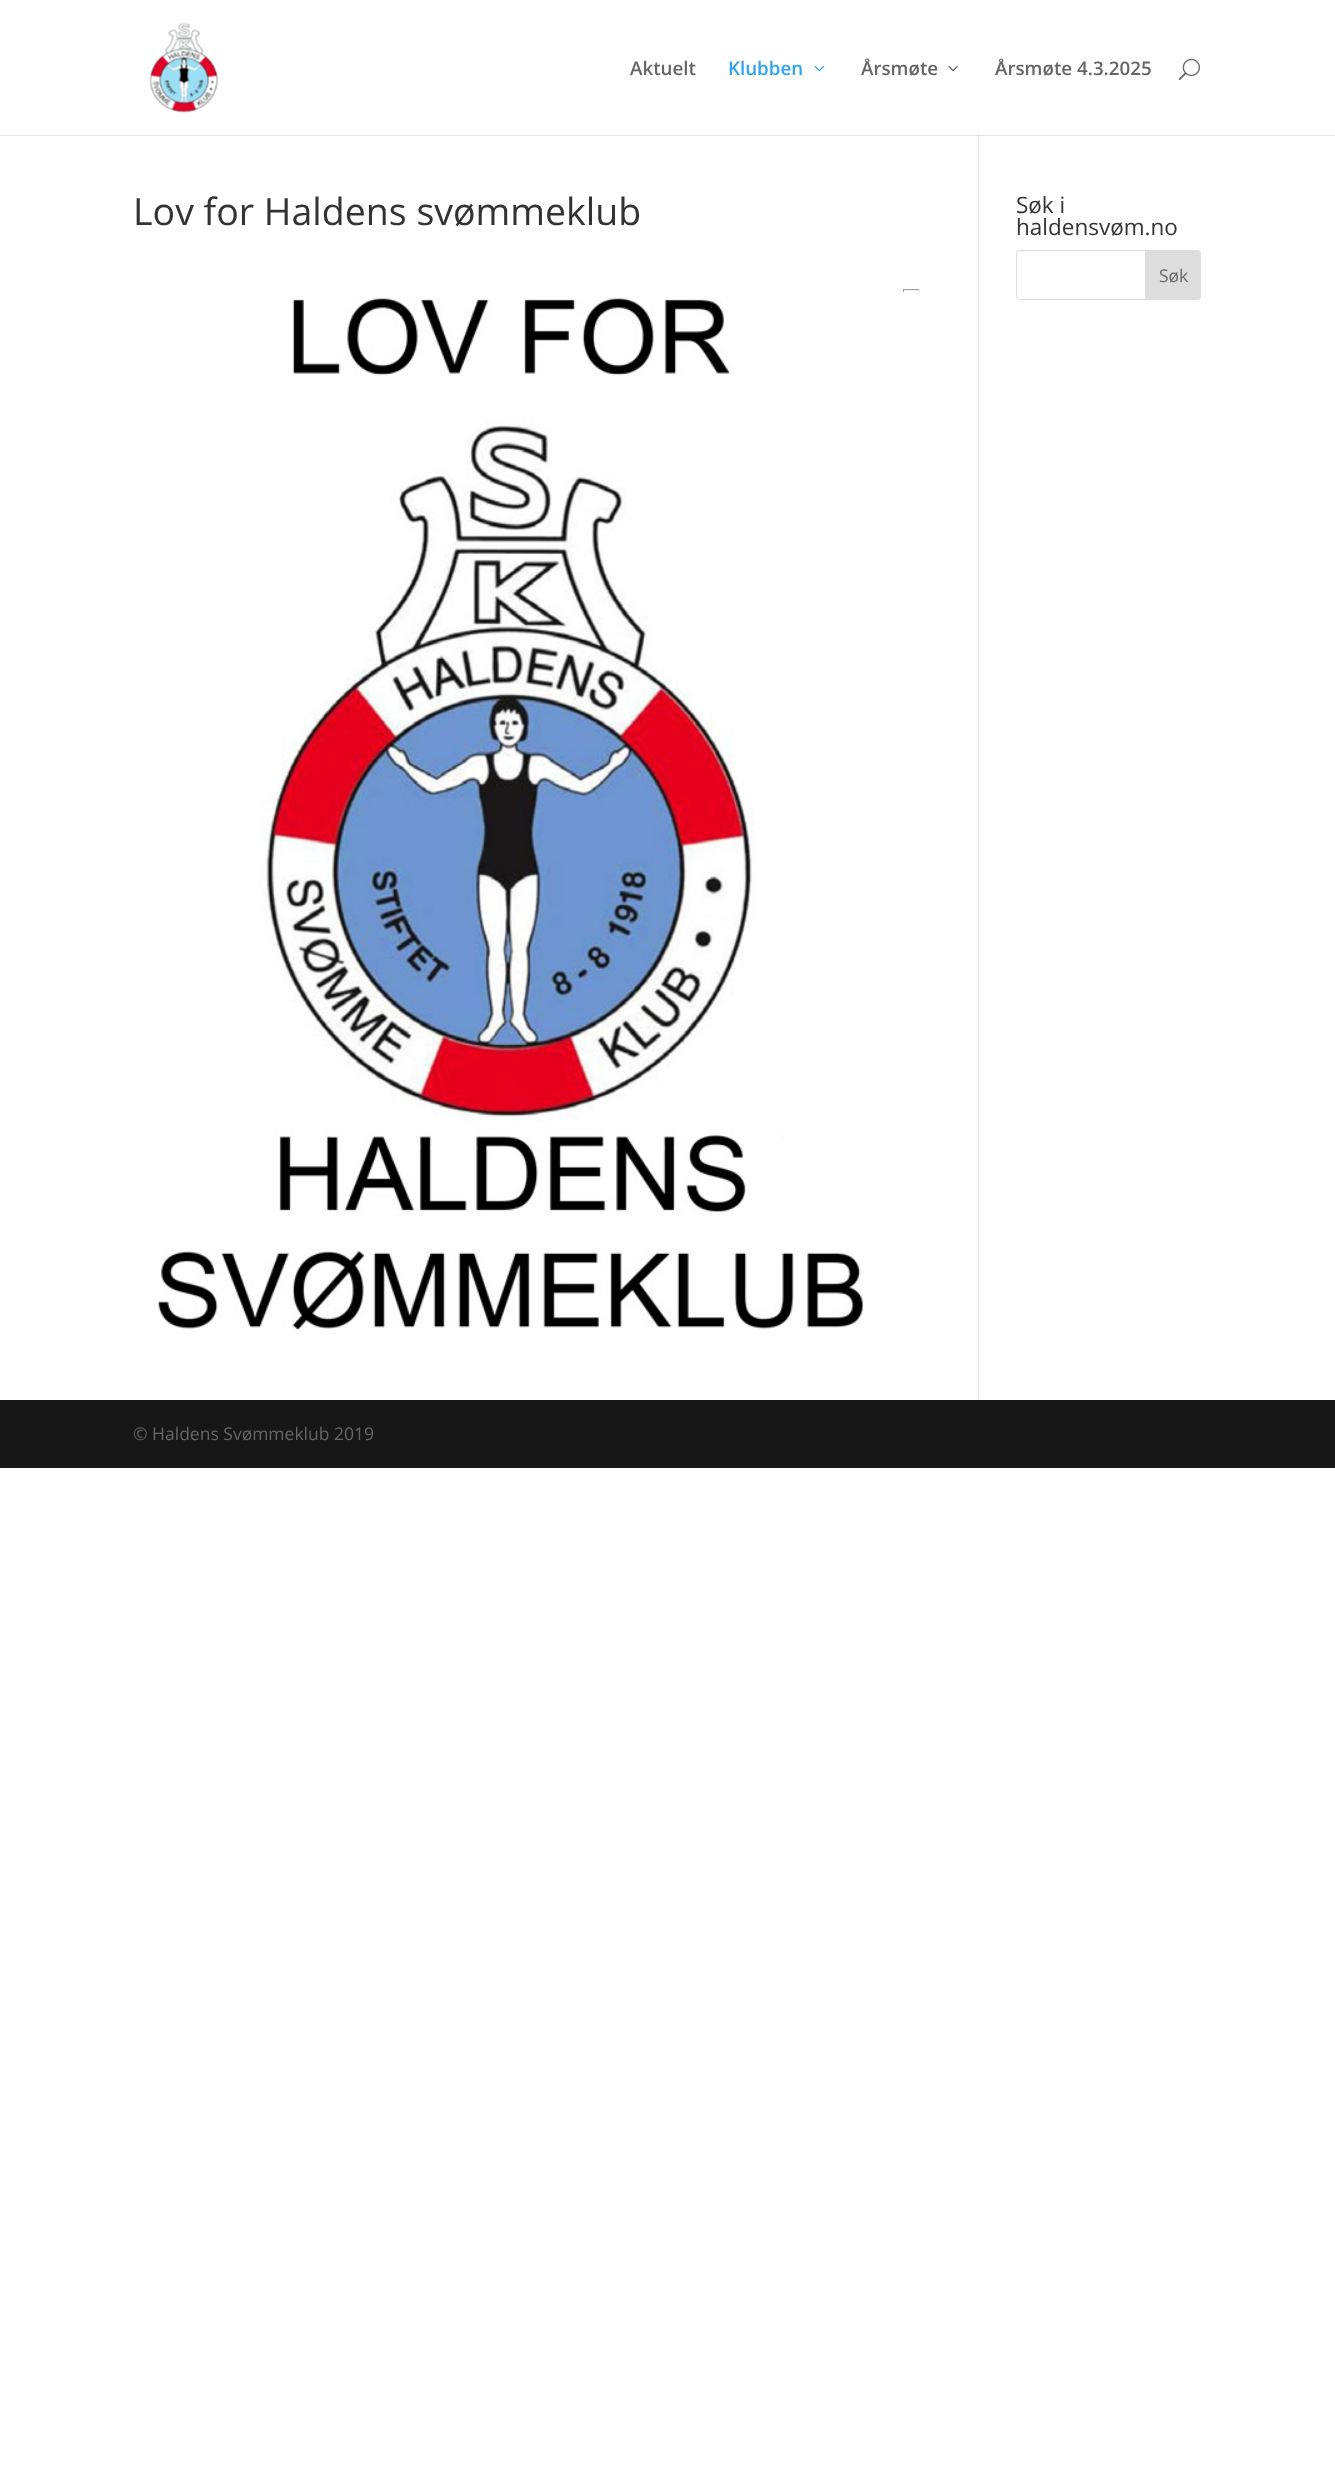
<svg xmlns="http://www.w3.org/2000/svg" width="1335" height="2474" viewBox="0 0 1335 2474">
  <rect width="100%" height="100%" fill="#ffffff"/>
  <rect x="0" y="135" width="1335" height="1" fill="#e6e6e6"/>
  <image x="149" y="22" width="69" height="91" href="img1.png"/>
  <text x="630" y="75" font-family="Open Sans" font-size="18.75" font-weight="600" fill="#666666">Aktuelt</text>
  <text x="728" y="75" font-family="Open Sans" font-size="18.75" font-weight="600" fill="#2ea3f2">Klubben</text>
  <image x="814" y="66" width="10" height="6" href="img2.png"/>
  <text x="861" y="75" font-family="Open Sans" font-size="18.75" font-weight="600" fill="#666666">Årsmøte</text>
  <image x="948" y="66" width="10" height="6" href="img3.png"/>
  <text x="995" y="75" font-family="Open Sans" font-size="18.75" font-weight="600" fill="#666666">Årsmøte 4.3.2025</text>
  <image x="1178" y="58" width="22" height="23" href="img4.png"/>
  <rect x="978" y="136" width="1" height="1264" fill="#e2e2e2"/>
  <rect x="978" y="135" width="1" height="1" fill="#cbcbcb"/>
  <text x="133" y="225" font-family="Open Sans" font-size="37.5" fill="#333333">Lov for Haldens svømmeklub</text>
  <rect x="903" y="289" width="17" height="1" fill="#9f9f9f"/>
  <rect x="919" y="289" width="1" height="3" fill="#eeeeee"/>
  <rect x="903" y="290" width="17" height="1" fill="#eeeeee"/>
  <rect x="903" y="289" width="1" height="3" fill="#9f9f9f"/>
  <image x="158" y="298" width="706" height="1033" href="img5.png"/>
  <text x="1016" y="213" font-family="Open Sans" font-size="22.5" fill="#333333">Søk i</text>
  <text x="1016" y="235" font-family="Open Sans" font-size="22.5" fill="#333333">haldensvøm.no</text>
  <rect x="1016.5" y="250.5" width="184" height="49" rx="3.5" fill="none" stroke="#dddddd"/>
  <path d="M1145.5 250.5H1197C1199 250.5 1200.5 252 1200.5 254V296C1200.5 298 1199 299.5 1197 299.5H1145.5Z" fill="#dddddd" stroke="#dddddd"/>
  <text x="1159" y="282" font-family="Open Sans" font-size="17.5" fill="#666666">Søk</text>
  <rect x="0" y="1400" width="1335" height="68" fill="#171717"/>
  <text x="133" y="1440" font-family="Open Sans" font-size="17.5" fill="#666666">© Haldens Svømmeklub 2019</text>
</svg>
